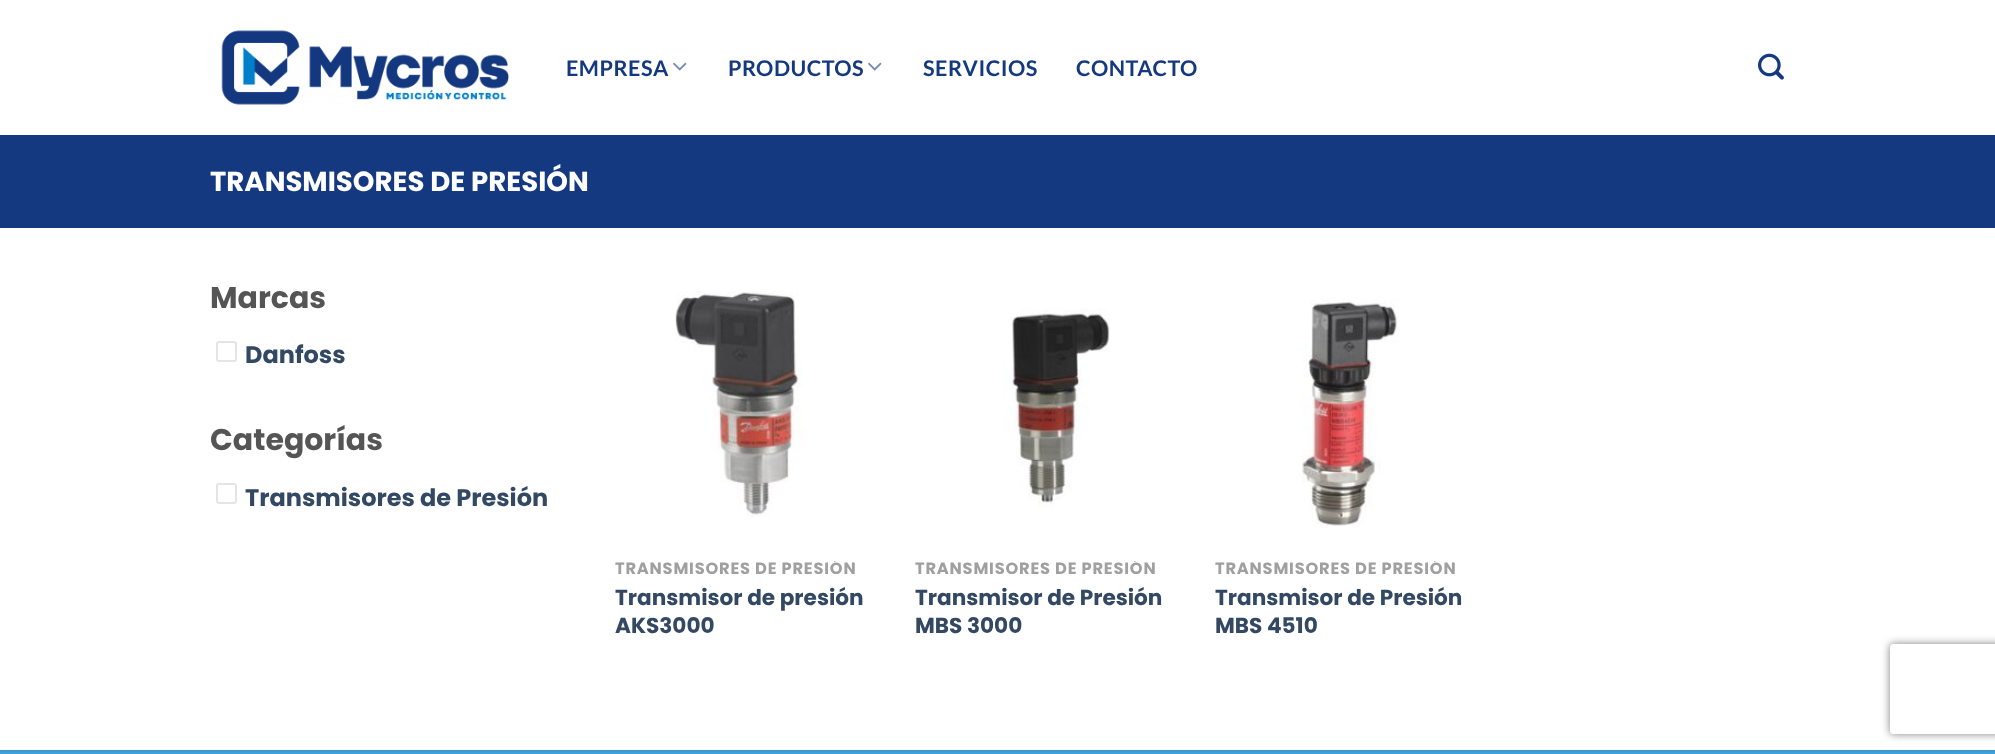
<svg xmlns="http://www.w3.org/2000/svg" width="1995" height="754" viewBox="0 0 1995 754">
  <defs>
    <clipPath id="clip1"><rect x="615" y="561" width="270" height="20"/></clipPath>
    <clipPath id="clip2"><rect x="915" y="561" width="270" height="20"/></clipPath>
    <clipPath id="clip3"><rect x="1215" y="561" width="270" height="20"/></clipPath>
    <clipPath id="clip4"><path d="M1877 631H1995V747H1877ZM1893 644H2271C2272.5 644 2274 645.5 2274 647V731C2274 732.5 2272.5 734 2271 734H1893C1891.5 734 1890 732.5 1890 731V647C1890 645.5 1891.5 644 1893 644Z" clip-rule="evenodd"/></clipPath>
    <filter id="blur1" x="-50%" y="-200%" width="200%" height="500%"><feGaussianBlur stdDeviation="4"/></filter>
  </defs>
  <rect width="100%" height="100%" fill="#ffffff"/>
  <image x="221" y="30" width="288" height="75" href="img1.png"/>
  <text x="566" y="76" font-family="Lato" font-size="21.6" font-weight="bold" letter-spacing="0.5" fill="#153980">EMPRESA</text>
  <image x="673" y="62" width="14" height="9" href="img2.png"/>
  <text x="728" y="76" font-family="Lato" font-size="21.6" font-weight="bold" letter-spacing="0.5" fill="#153980">PRODUCTOS</text>
  <image x="868" y="62" width="14" height="9" href="img2.png"/>
  <text x="923" y="76" font-family="Lato" font-size="21.6" font-weight="bold" letter-spacing="0.5" fill="#153980">SERVICIOS</text>
  <text x="1076" y="76" font-family="Lato" font-size="21.6" font-weight="bold" letter-spacing="0.5" fill="#153980">CONTACTO</text>
  <image x="1758" y="53" width="26" height="27" href="img3.png"/>
  <rect x="0" y="135" width="1995" height="93" fill="#153980"/>
  <text x="210" y="191" font-family="Poppins" font-size="27.6" font-weight="bold" fill="#ffffff">TRANSMISORES DE PRESIÓN</text>
  <text x="210" y="308" font-family="Poppins" font-size="30" font-weight="bold" fill="#555555">Marcas</text>
  <rect x="217" y="342" width="19" height="19" rx="2" fill="none" stroke="#e5e5e5" stroke-width="2"/>
  <text x="245" y="363" font-family="Poppins" font-size="24" font-weight="bold" fill="#334862">Danfoss</text>
  <text x="210" y="450" font-family="Poppins" font-size="30" font-weight="bold" fill="#555555">Categorías</text>
  <rect x="217" y="484" width="19" height="19" rx="2" fill="none" stroke="#e5e5e5" stroke-width="2"/>
  <text x="245" y="506" font-family="Poppins" font-size="24" font-weight="bold" fill="#334862">Transmisores de Presión</text>
  <image x="669" y="291" width="138" height="226" href="img4.png"/>
  <g clip-path="url(#clip1)">
    <text x="615" y="574" font-family="Poppins" font-size="16.25" font-weight="bold" letter-spacing="0.8" fill="#a0a0a0">TRANSMISORES DE PRESIÓN</text>
  </g>
  <text x="615" y="605" font-family="Poppins" font-size="21.6" font-weight="bold" fill="#334862">Transmisor de presión</text>
  <text x="615" y="633" font-family="Poppins" font-size="21.6" font-weight="bold" fill="#334862">AKS3000</text>
  <image x="1003" y="308" width="107" height="201" href="img5.png"/>
  <g clip-path="url(#clip2)">
    <text x="915" y="574" font-family="Poppins" font-size="16.25" font-weight="bold" letter-spacing="0.8" fill="#a0a0a0">TRANSMISORES DE PRESIÓN</text>
  </g>
  <text x="915" y="605" font-family="Poppins" font-size="21.6" font-weight="bold" fill="#334862">Transmisor de Presión</text>
  <text x="915" y="633" font-family="Poppins" font-size="21.6" font-weight="bold" fill="#334862">MBS 3000</text>
  <image x="1302" y="299" width="97" height="227" href="img6.png"/>
  <g clip-path="url(#clip3)">
    <text x="1215" y="574" font-family="Poppins" font-size="16.25" font-weight="bold" letter-spacing="0.8" fill="#a0a0a0">TRANSMISORES DE PRESIÓN</text>
  </g>
  <text x="1215" y="605" font-family="Poppins" font-size="21.6" font-weight="bold" fill="#334862">Transmisor de Presión</text>
  <text x="1215" y="633" font-family="Poppins" font-size="21.6" font-weight="bold" fill="#334862">MBS 4510</text>
  <rect x="0" y="752" width="1995" height="2" fill="#40a0d9"/>
  <rect x="0" y="750" width="1995" height="2" fill="#3d98ce"/>
  <g clip-path="url(#clip4)">
    <rect x="1890" y="644" width="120" height="90" rx="3" fill="#808080" filter="url(#blur1)"/>
  </g>
</svg>
